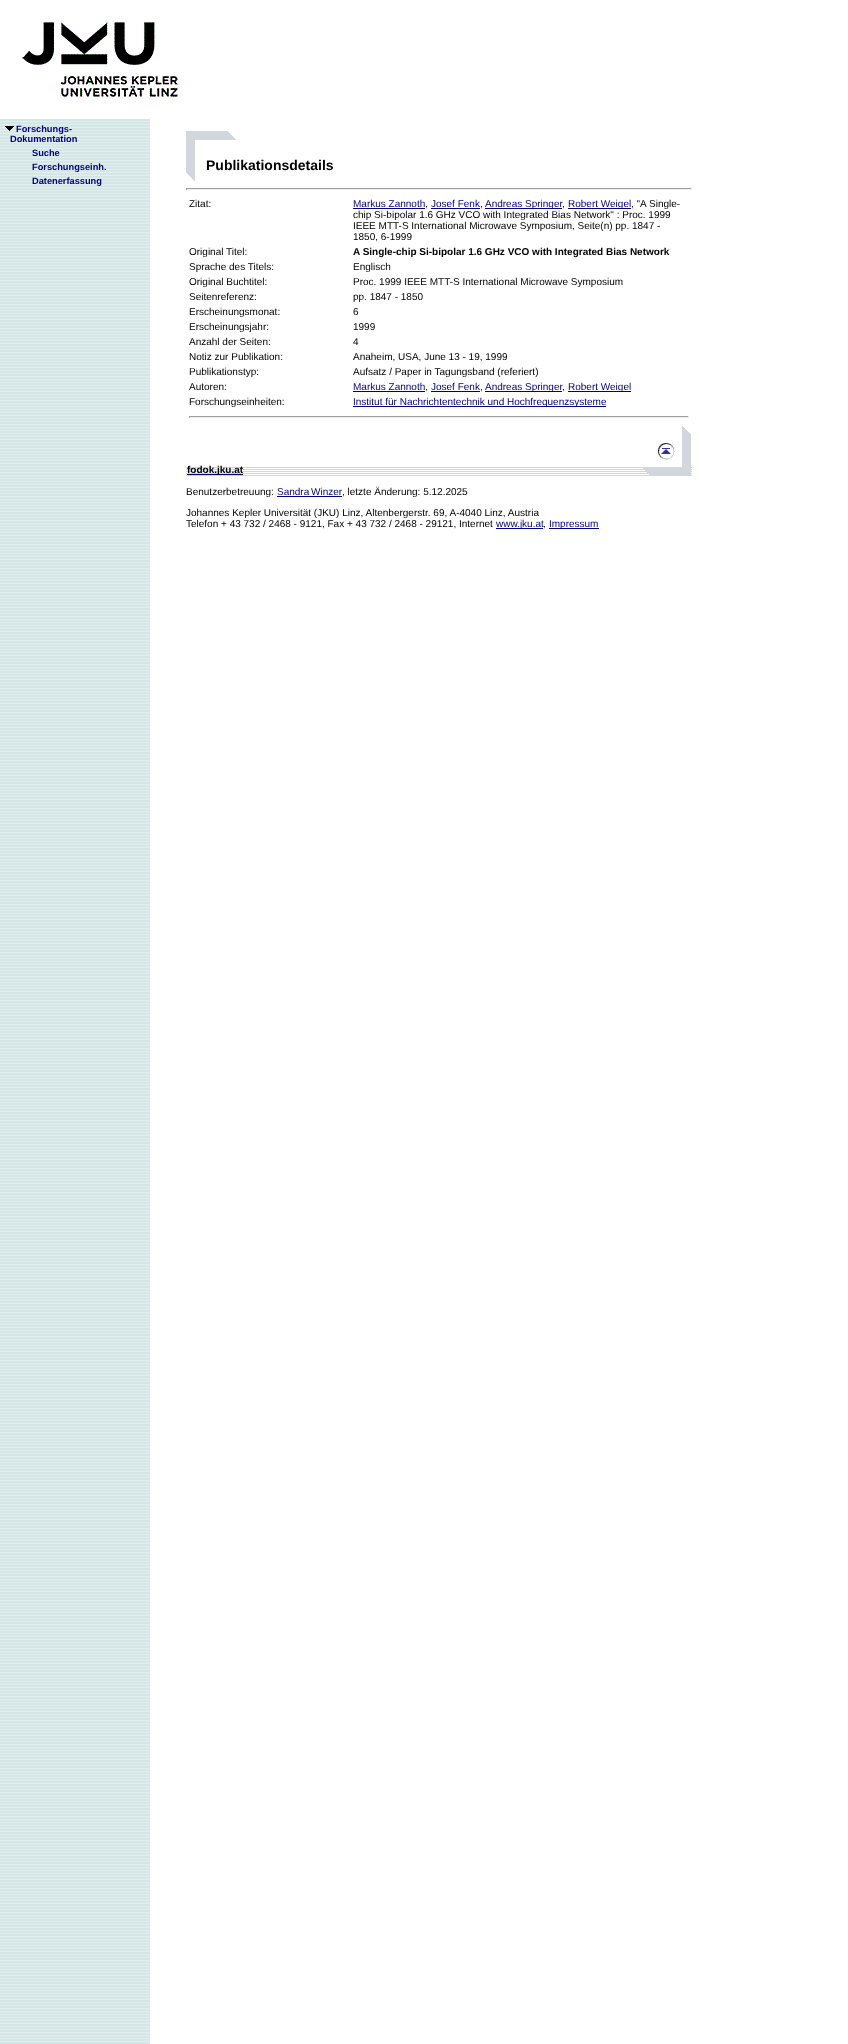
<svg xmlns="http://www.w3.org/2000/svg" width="848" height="2044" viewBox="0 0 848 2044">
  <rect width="100%" height="100%" fill="#ffffff"/>
  <image x="22" y="22" width="156" height="75" href="img1.png"/>
  <image x="0" y="119" width="150" height="1925" href="img2.png"/>
  <image x="5" y="126" width="9" height="5" href="img3.png"/>
  <text x="16" y="132" font-family="Liberation Sans" font-size="9.25" font-weight="bold" fill="#000080">Forschungs-</text>
  <text x="10" y="142" font-family="Liberation Sans" font-size="9.25" font-weight="bold" fill="#000080">Dokumentation</text>
  <text x="32" y="156" font-family="Liberation Sans" font-size="9.25" font-weight="bold" fill="#000080">Suche</text>
  <text x="32" y="170" font-family="Liberation Sans" font-size="9.25" font-weight="bold" fill="#000080">Forschungseinh.</text>
  <text x="32" y="184" font-family="Liberation Sans" font-size="9.25" font-weight="bold" fill="#000080">Datenerfassung</text>
  <image x="186" y="131" width="50" height="50" href="img4.png"/>
  <text x="206" y="170" font-family="Liberation Sans" font-size="14" font-weight="bold" fill="#000000">Publikationsdetails</text>
  <rect x="186" y="188" width="506" height="1" fill="#9f9f9f"/>
  <rect x="691" y="188" width="1" height="2" fill="#eeeeee"/>
  <rect x="186" y="189" width="506" height="1" fill="#eeeeee"/>
  <rect x="186" y="188" width="1" height="2" fill="#9f9f9f"/>
  <text x="189" y="207" font-family="Liberation Sans" font-size="10" fill="#000000">Zitat:</text>
  <text x="353" y="207" font-family="Liberation Sans" font-size="10" fill="#000080">Markus Zannoth</text>
  <rect x="353" y="208" width="72" height="1" fill="#000080"/>
  <text x="425" y="207" font-family="Liberation Sans" font-size="10" fill="#000000">,</text>
  <text x="431" y="207" font-family="Liberation Sans" font-size="10" fill="#000080">Josef Fenk</text>
  <rect x="431" y="208" width="49" height="1" fill="#000080"/>
  <text x="480" y="207" font-family="Liberation Sans" font-size="10" fill="#000000">,</text>
  <rect x="485" y="208" width="77" height="1" fill="#000080"/>
  <text x="485" y="207" font-family="Liberation Sans" font-size="10" fill="#000080">Andreas Springer</text>
  <text x="562" y="207" font-family="Liberation Sans" font-size="10" fill="#000000">,</text>
  <rect x="568" y="208" width="63" height="1" fill="#000080"/>
  <text x="568" y="207" font-family="Liberation Sans" font-size="10" fill="#000080">Robert Weigel</text>
  <text x="631" y="207" font-family="Liberation Sans" font-size="10" fill="#000000">, "A Single-</text>
  <text x="353" y="218" font-family="Liberation Sans" font-size="10" fill="#000000">chip Si-bipolar 1.6 GHz VCO with Integrated Bias Network" : Proc. 1999</text>
  <text x="353" y="229" font-family="Liberation Sans" font-size="10" fill="#000000">IEEE MTT-S International Microwave Symposium, Seite(n) pp. 1847 -</text>
  <text x="353" y="240" font-family="Liberation Sans" font-size="10" fill="#000000">1850, 6-1999</text>
  <text x="189" y="255" font-family="Liberation Sans" font-size="10" fill="#000000">Original Titel:</text>
  <text x="353" y="255" font-family="Liberation Sans" font-size="10" font-weight="bold" fill="#000000">A Single-chip Si-bipolar 1.6 GHz VCO with Integrated Bias Network</text>
  <text x="189" y="270" font-family="Liberation Sans" font-size="10" fill="#000000">Sprache des Titels:</text>
  <text x="353" y="270" font-family="Liberation Sans" font-size="10" fill="#000000">Englisch</text>
  <text x="189" y="285" font-family="Liberation Sans" font-size="10" fill="#000000">Original Buchtitel:</text>
  <text x="353" y="285" font-family="Liberation Sans" font-size="10" fill="#000000">Proc. 1999 IEEE MTT-S International Microwave Symposium</text>
  <text x="189" y="300" font-family="Liberation Sans" font-size="10" fill="#000000">Seitenreferenz:</text>
  <text x="353" y="300" font-family="Liberation Sans" font-size="10" fill="#000000">pp. 1847 - 1850</text>
  <text x="189" y="315" font-family="Liberation Sans" font-size="10" fill="#000000">Erscheinungsmonat:</text>
  <text x="353" y="315" font-family="Liberation Sans" font-size="10" fill="#000000">6</text>
  <text x="189" y="330" font-family="Liberation Sans" font-size="10" fill="#000000">Erscheinungsjahr:</text>
  <text x="353" y="330" font-family="Liberation Sans" font-size="10" fill="#000000">1999</text>
  <text x="189" y="345" font-family="Liberation Sans" font-size="10" fill="#000000">Anzahl der Seiten:</text>
  <text x="353" y="345" font-family="Liberation Sans" font-size="10" fill="#000000">4</text>
  <text x="189" y="360" font-family="Liberation Sans" font-size="10" fill="#000000">Notiz zur Publikation:</text>
  <text x="353" y="360" font-family="Liberation Sans" font-size="10" fill="#000000">Anaheim, USA, June 13 - 19, 1999</text>
  <text x="189" y="375" font-family="Liberation Sans" font-size="10" fill="#000000">Publikationstyp:</text>
  <text x="353" y="375" font-family="Liberation Sans" font-size="10" fill="#000000">Aufsatz / Paper in Tagungsband (referiert)</text>
  <text x="189" y="390" font-family="Liberation Sans" font-size="10" fill="#000000">Autoren:</text>
  <text x="353" y="390" font-family="Liberation Sans" font-size="10" fill="#000080">Markus Zannoth</text>
  <rect x="353" y="391" width="72" height="1" fill="#000080"/>
  <text x="425" y="390" font-family="Liberation Sans" font-size="10" fill="#000000">,</text>
  <text x="431" y="390" font-family="Liberation Sans" font-size="10" fill="#000080">Josef Fenk</text>
  <rect x="431" y="391" width="49" height="1" fill="#000080"/>
  <text x="480" y="390" font-family="Liberation Sans" font-size="10" fill="#000000">,</text>
  <rect x="485" y="391" width="77" height="1" fill="#000080"/>
  <text x="485" y="390" font-family="Liberation Sans" font-size="10" fill="#000080">Andreas Springer</text>
  <text x="562" y="390" font-family="Liberation Sans" font-size="10" fill="#000000">,</text>
  <rect x="568" y="391" width="63" height="1" fill="#000080"/>
  <text x="568" y="390" font-family="Liberation Sans" font-size="10" fill="#000080">Robert Weigel</text>
  <text x="189" y="405" font-family="Liberation Sans" font-size="10" fill="#000000">Forschungseinheiten:</text>
  <rect x="353" y="406" width="253" height="1" fill="#000080"/>
  <text x="353" y="405" font-family="Liberation Sans" font-size="10" fill="#000080">Institut für Nachrichtentechnik und Hochfrequenzsysteme</text>
  <rect x="189" y="416" width="500" height="1" fill="#9f9f9f"/>
  <rect x="688" y="416" width="1" height="2" fill="#eeeeee"/>
  <rect x="189" y="417" width="500" height="1" fill="#eeeeee"/>
  <rect x="189" y="416" width="1" height="2" fill="#9f9f9f"/>
  <image x="186" y="467" width="506" height="9" href="img5.png"/>
  <rect x="187" y="474" width="56" height="1" fill="#000080"/>
  <text x="187" y="473" font-family="Liberation Sans" font-size="10" font-weight="bold" fill="#000000">fodok.jku.at</text>
  <image x="643" y="426" width="48" height="49" href="img6.png"/>
  <image x="658" y="443" width="17" height="17" href="img7.png"/>
  <text x="186" y="495" font-family="Liberation Sans" font-size="10" fill="#000000">Benutzerbetreuung:</text>
  <text x="277" y="495" word-spacing="-1" font-family="Liberation Sans" font-size="10" fill="#000080">Sandra Winzer</text>
  <rect x="277" y="496" width="65" height="1" fill="#000080"/>
  <text x="342" y="495" font-family="Liberation Sans" font-size="10" fill="#000000">, letzte Änderung: 5.12.2025</text>
  <text x="186" y="516" font-family="Liberation Sans" font-size="10" fill="#000000">Johannes Kepler Universität (JKU) Linz, Altenbergerstr. 69, A-4040 Linz, Austria</text>
  <text x="186" y="527" font-family="Liberation Sans" font-size="10" fill="#000000">Telefon + 43 732 / 2468 - 9121, Fax + 43 732 / 2468 - 29121, Internet</text>
  <rect x="496" y="528" width="47" height="1" fill="#000080"/>
  <text x="496" y="527" font-family="Liberation Sans" font-size="10" fill="#000080">www.jku.at</text>
  <text x="543" y="527" font-family="Liberation Sans" font-size="10" fill="#000000">,</text>
  <rect x="549" y="528" width="50" height="1" fill="#000080"/>
  <text x="549" y="527" font-family="Liberation Sans" font-size="10" fill="#000080">Impressum</text>
</svg>
